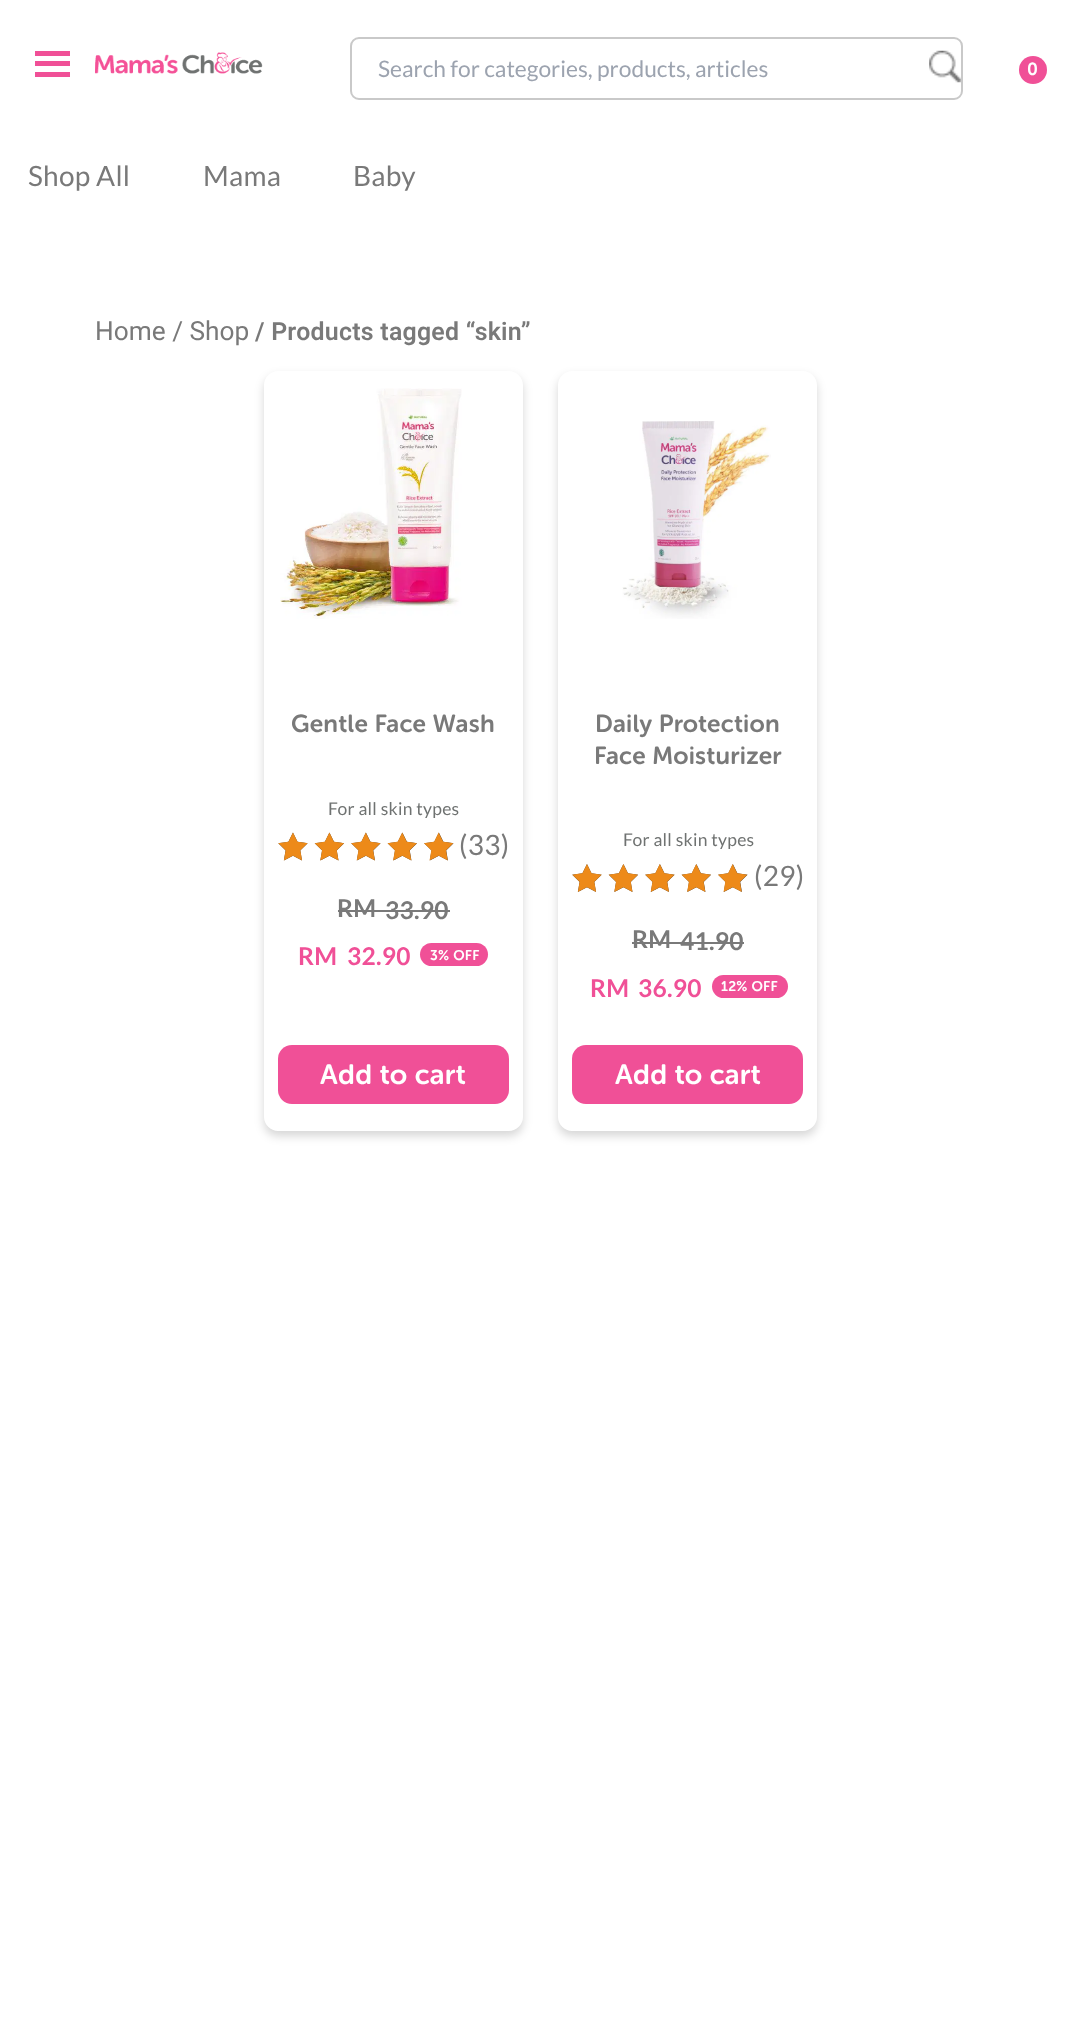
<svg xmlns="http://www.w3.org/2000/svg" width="1080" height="2043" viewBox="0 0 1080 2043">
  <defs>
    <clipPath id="clip1"><path d="M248 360H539V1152H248ZM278 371H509C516.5 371 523 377.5 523 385V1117C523 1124.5 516.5 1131 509 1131H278C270.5 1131 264 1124.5 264 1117V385C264 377.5 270.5 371 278 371Z" clip-rule="evenodd"/></clipPath>
    <filter id="blur1" x="-50%" y="-200%" width="200%" height="500%"><feGaussianBlur stdDeviation="5"/></filter>
    <clipPath id="clip2"><path d="M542 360H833V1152H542ZM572 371H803C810.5 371 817 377.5 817 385V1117C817 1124.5 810.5 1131 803 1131H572C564.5 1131 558 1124.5 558 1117V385C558 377.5 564.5 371 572 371Z" clip-rule="evenodd"/></clipPath>
  </defs>
  <rect width="100%" height="100%" fill="#ffffff"/>
  <rect x="35" y="51" width="35" height="5" fill="#f05097"/>
  <rect x="35" y="61" width="35" height="5" fill="#f05097"/>
  <rect x="35" y="72" width="35" height="5" fill="#f05097"/>
  <image x="95" y="52" width="168" height="22" href="img1.png"/>
  <image x="929" y="50" width="32" height="33" href="img2.png"/>
  <rect x="351" y="38" width="611" height="61" rx="8" fill="none" stroke="#c9c9c9" stroke-width="2"/>
  <text x="378" y="77" font-family="Lato" font-size="22.75" fill="#9ca3af">Search for categories, products, articles</text>
  <circle cx="1033" cy="70" r="14" fill="#f05097"/>
  <text x="1027" y="75" font-family="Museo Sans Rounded" font-size="17.5" font-weight="600" letter-spacing="0.25" fill="#ffffff">0</text>
  <text x="28" y="186" font-family="Lato" font-size="28" letter-spacing="0.25" fill="#797979">Shop All</text>
  <text x="203" y="186" font-family="Lato" font-size="28" letter-spacing="0.25" fill="#797979">Mama</text>
  <text x="353" y="186" font-family="Lato" font-size="28" letter-spacing="0.25" fill="#797979">Baby</text>
  <text x="95" y="340" font-family="Roboto" font-size="26.25" fill="#797979">Home / Shop</text>
  <text x="255" y="340" font-family="Roboto" font-size="24.9" font-weight="600" letter-spacing="0.25" fill="#797979">/ Products tagged “skin”</text>
  <g clip-path="url(#clip1)">
    <rect x="264" y="376" width="259" height="760" rx="14" fill="#000000" fill-opacity="0.16" filter="url(#blur1)"/>
  </g>
  <image x="280" y="388" width="182" height="231" href="img3.png"/>
  <text x="291" y="732" font-family="Museo Sans Rounded" font-size="24.5" font-weight="600" letter-spacing="0.25" fill="#797979">Gentle Face Wash</text>
  <text x="328" y="815" font-family="Lato" font-size="17.5" letter-spacing="0.25" fill="#6f7271">For all skin types</text>
  <image x="278" y="832" width="176" height="29" href="img4.png"/>
  <image x="278" y="832" width="176" height="29" href="img5.png"/>
  <text x="459" y="855" font-family="Lato" font-size="28" letter-spacing="0.25" fill="#797979">(33)</text>
  <text x="337" y="917" font-family="Lato" font-size="24.5" font-weight="bold" letter-spacing="0.25" fill="#797979">RM</text>
  <text x="385" y="919" font-family="Lato" font-size="24.5" font-weight="bold" letter-spacing="0.25" fill="#797979">33.90</text>
  <rect x="338" y="910" width="112" height="2" fill="#797979"/>
  <text x="298" y="965" font-family="Lato" font-size="24.5" font-weight="bold" letter-spacing="0.25" fill="#f05097">RM</text>
  <text x="347" y="965" font-family="Lato" font-size="24.5" font-weight="bold" letter-spacing="0.25" fill="#f05097">32.90</text>
  <rect x="420" y="943" width="68" height="23" rx="11.5" fill="#f05097"/>
  <text x="430" y="960" font-family="Museo Sans Rounded" font-size="14" font-weight="600" letter-spacing="0.25" fill="#ffffff">3% OFF</text>
  <rect x="278" y="1045" width="231" height="59" rx="14" fill="#f05097"/>
  <text x="320" y="1084" font-family="Museo Sans Rounded" font-size="28" font-weight="600" letter-spacing="0.25" fill="#ffffff">Add to cart</text>
  <g clip-path="url(#clip2)">
    <rect x="558" y="376" width="259" height="760" rx="14" fill="#000000" fill-opacity="0.16" filter="url(#blur1)"/>
  </g>
  <image x="622" y="421" width="149" height="198" href="img6.png"/>
  <text x="595" y="732" font-family="Museo Sans Rounded" font-size="24.5" font-weight="600" letter-spacing="0.25" fill="#797979">Daily Protection</text>
  <text x="594" y="764" font-family="Museo Sans Rounded" font-size="24.5" font-weight="600" letter-spacing="0.25" fill="#797979">Face Moisturizer</text>
  <text x="623" y="846" font-family="Lato" font-size="17.5" letter-spacing="0.25" fill="#6f7271">For all skin types</text>
  <image x="572" y="864" width="176" height="28" href="img7.png"/>
  <image x="572" y="864" width="176" height="28" href="img8.png"/>
  <text x="754" y="886" font-family="Lato" font-size="28" letter-spacing="0.25" fill="#797979">(29)</text>
  <text x="632" y="948" font-family="Lato" font-size="24.5" font-weight="bold" letter-spacing="0.25" fill="#797979">RM</text>
  <text x="680" y="950" font-family="Lato" font-size="24.5" font-weight="bold" letter-spacing="0.25" fill="#797979">41.90</text>
  <rect x="632" y="942" width="112" height="2" fill="#797979"/>
  <text x="590" y="997" font-family="Lato" font-size="24.5" font-weight="bold" letter-spacing="0.25" fill="#f05097">RM</text>
  <text x="638" y="997" font-family="Lato" font-size="24.5" font-weight="bold" letter-spacing="0.25" fill="#f05097">36.90</text>
  <rect x="712" y="975" width="76" height="23" rx="11.5" fill="#f05097"/>
  <text x="721" y="991" font-family="Museo Sans Rounded" font-size="14" font-weight="600" letter-spacing="0.25" fill="#ffffff">12% OFF</text>
  <rect x="572" y="1045" width="231" height="59" rx="14" fill="#f05097"/>
  <text x="615" y="1084" font-family="Museo Sans Rounded" font-size="28" font-weight="600" letter-spacing="0.25" fill="#ffffff">Add to cart</text>
</svg>
